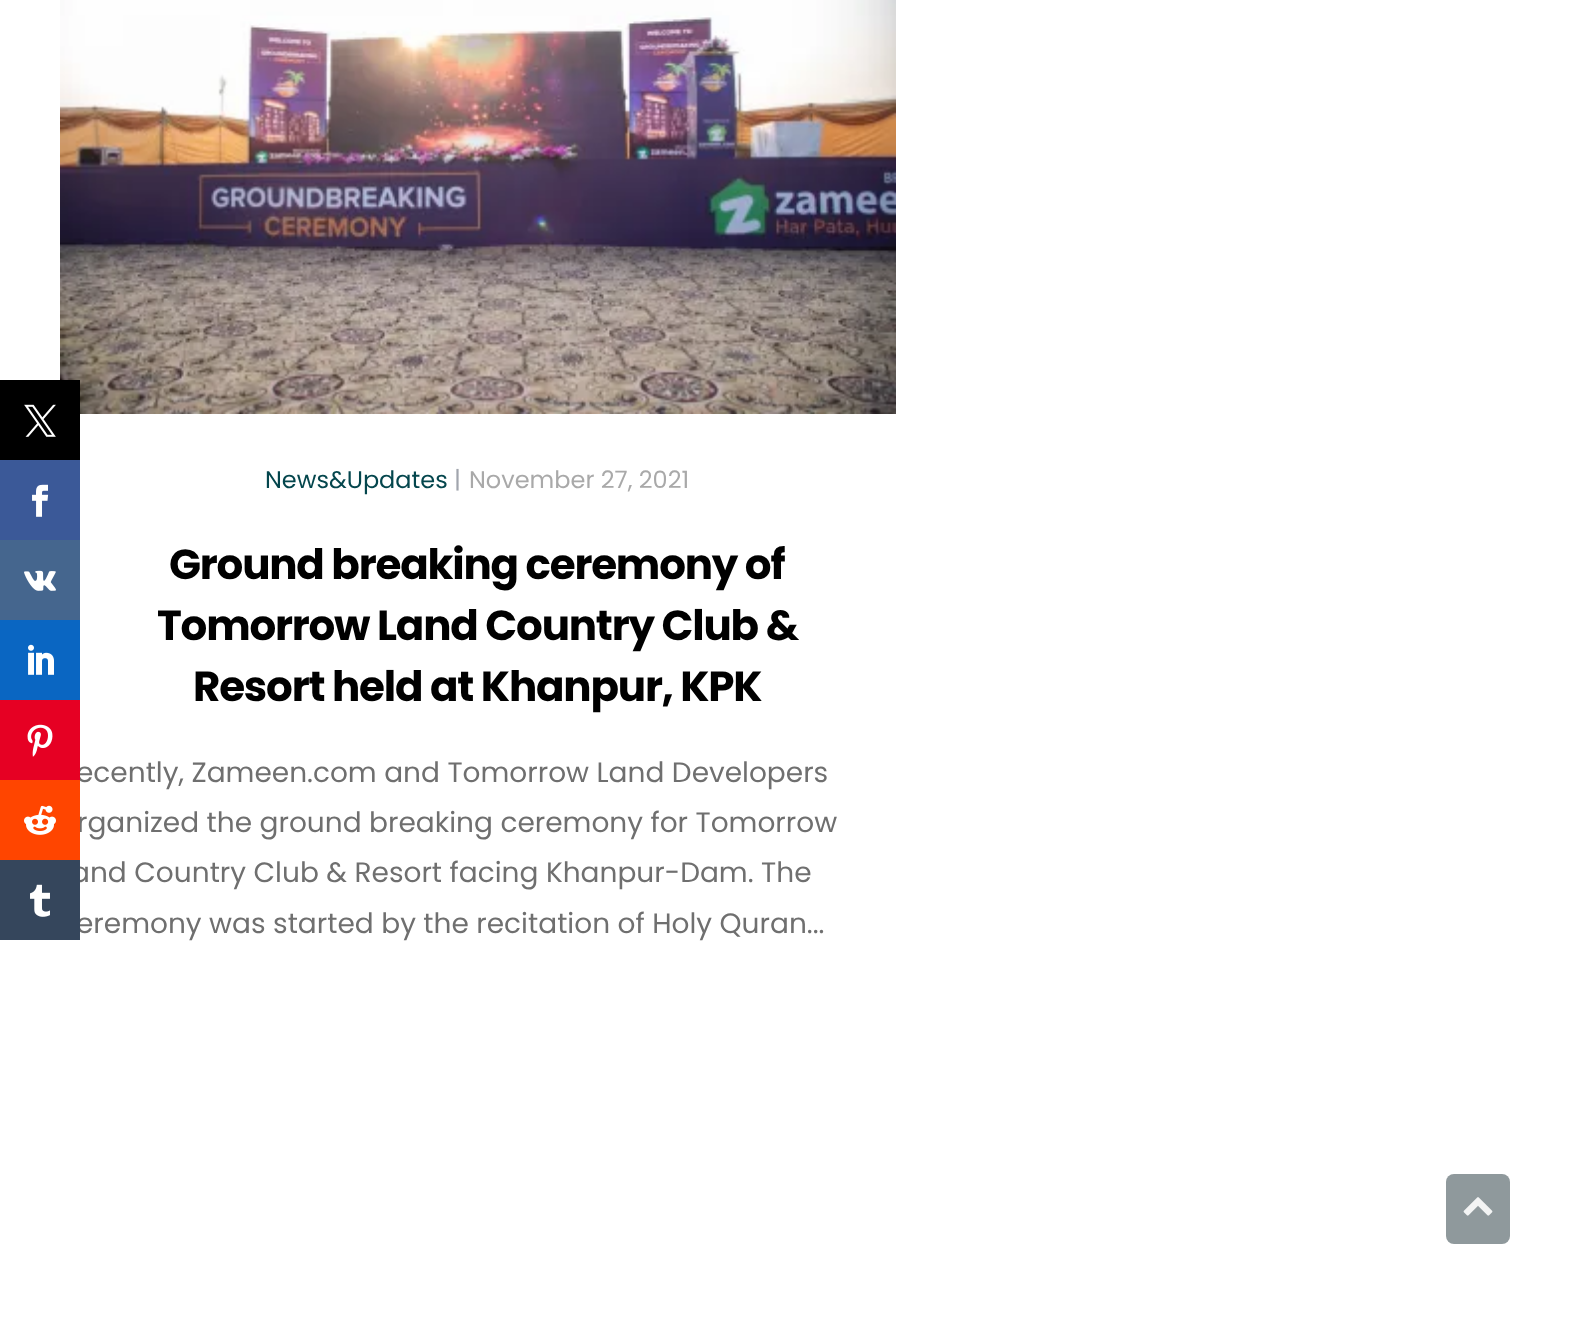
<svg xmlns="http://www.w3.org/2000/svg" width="1574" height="1339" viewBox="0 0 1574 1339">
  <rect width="100%" height="100%" fill="#ffffff"/>
  <image x="60" y="0" width="836" height="414" href="img8.png"/>
  <rect x="0" y="380" width="80" height="80" fill="#000000"/>
  <image x="24" y="404" width="32" height="33" href="img1.png"/>
  <rect x="0" y="460" width="80" height="80" fill="#3b5998"/>
  <image x="32" y="484" width="17" height="33" href="img2.png"/>
  <rect x="0" y="540" width="80" height="80" fill="#45668e"/>
  <image x="24" y="570" width="32" height="21" href="img3.png"/>
  <rect x="0" y="620" width="80" height="80" fill="#0a66c2"/>
  <image x="28" y="644" width="26" height="31" href="img4.png"/>
  <text x="76" y="782" font-family="Poppins" font-size="28" fill="#6f6f6f">ecently, Zameen.com and Tomorrow Land Developers</text>
  <rect x="0" y="700" width="80" height="80" fill="#e60023"/>
  <image x="27" y="724" width="26" height="33" href="img5.png"/>
  <text x="77" y="832" font-family="Poppins" font-size="28" fill="#6f6f6f">rganized the ground breaking ceremony for Tomorrow</text>
  <rect x="0" y="780" width="80" height="80" fill="#ff4500"/>
  <image x="24" y="805" width="32" height="30" href="img6.png"/>
  <text x="71" y="882" font-family="Poppins" font-size="28" fill="#6f6f6f">and Country Club &amp; Resort facing Khanpur-Dam. The</text>
  <text x="76" y="933" font-family="Poppins" font-size="28" fill="#6f6f6f">eremony was started by the recitation of Holy Quran...</text>
  <rect x="0" y="860" width="80" height="80" fill="#35465c"/>
  <image x="30" y="884" width="20" height="33" href="img7.png"/>
  <text x="265" y="488" font-family="Poppins" font-size="24" fill="#04464d">News&amp;Updates</text>
  <text x="454" y="488" font-family="Poppins" font-size="24" fill="#a1a5ad">|</text>
  <text x="469" y="488" font-family="Poppins" font-size="24" fill="#a9a9a9">November 27, 2021</text>
  <text x="169" y="579" font-family="Poppins" font-size="42" font-weight="bold" letter-spacing="-1.2" fill="#000000">Ground breaking ceremony of</text>
  <text x="157" y="640" font-family="Poppins" font-size="42" font-weight="bold" letter-spacing="-1.2" fill="#000000">Tomorrow Land Country Club &amp;</text>
  <text x="193" y="701" font-family="Poppins" font-size="42" font-weight="bold" letter-spacing="-1.2" fill="#000000">Resort held at Khanpur, KPK</text>
  <rect x="1446" y="1174" width="64" height="70" rx="8" fill="#8f999c"/>
  <image x="1463" y="1197" width="30" height="19" href="img9.png"/>
</svg>
